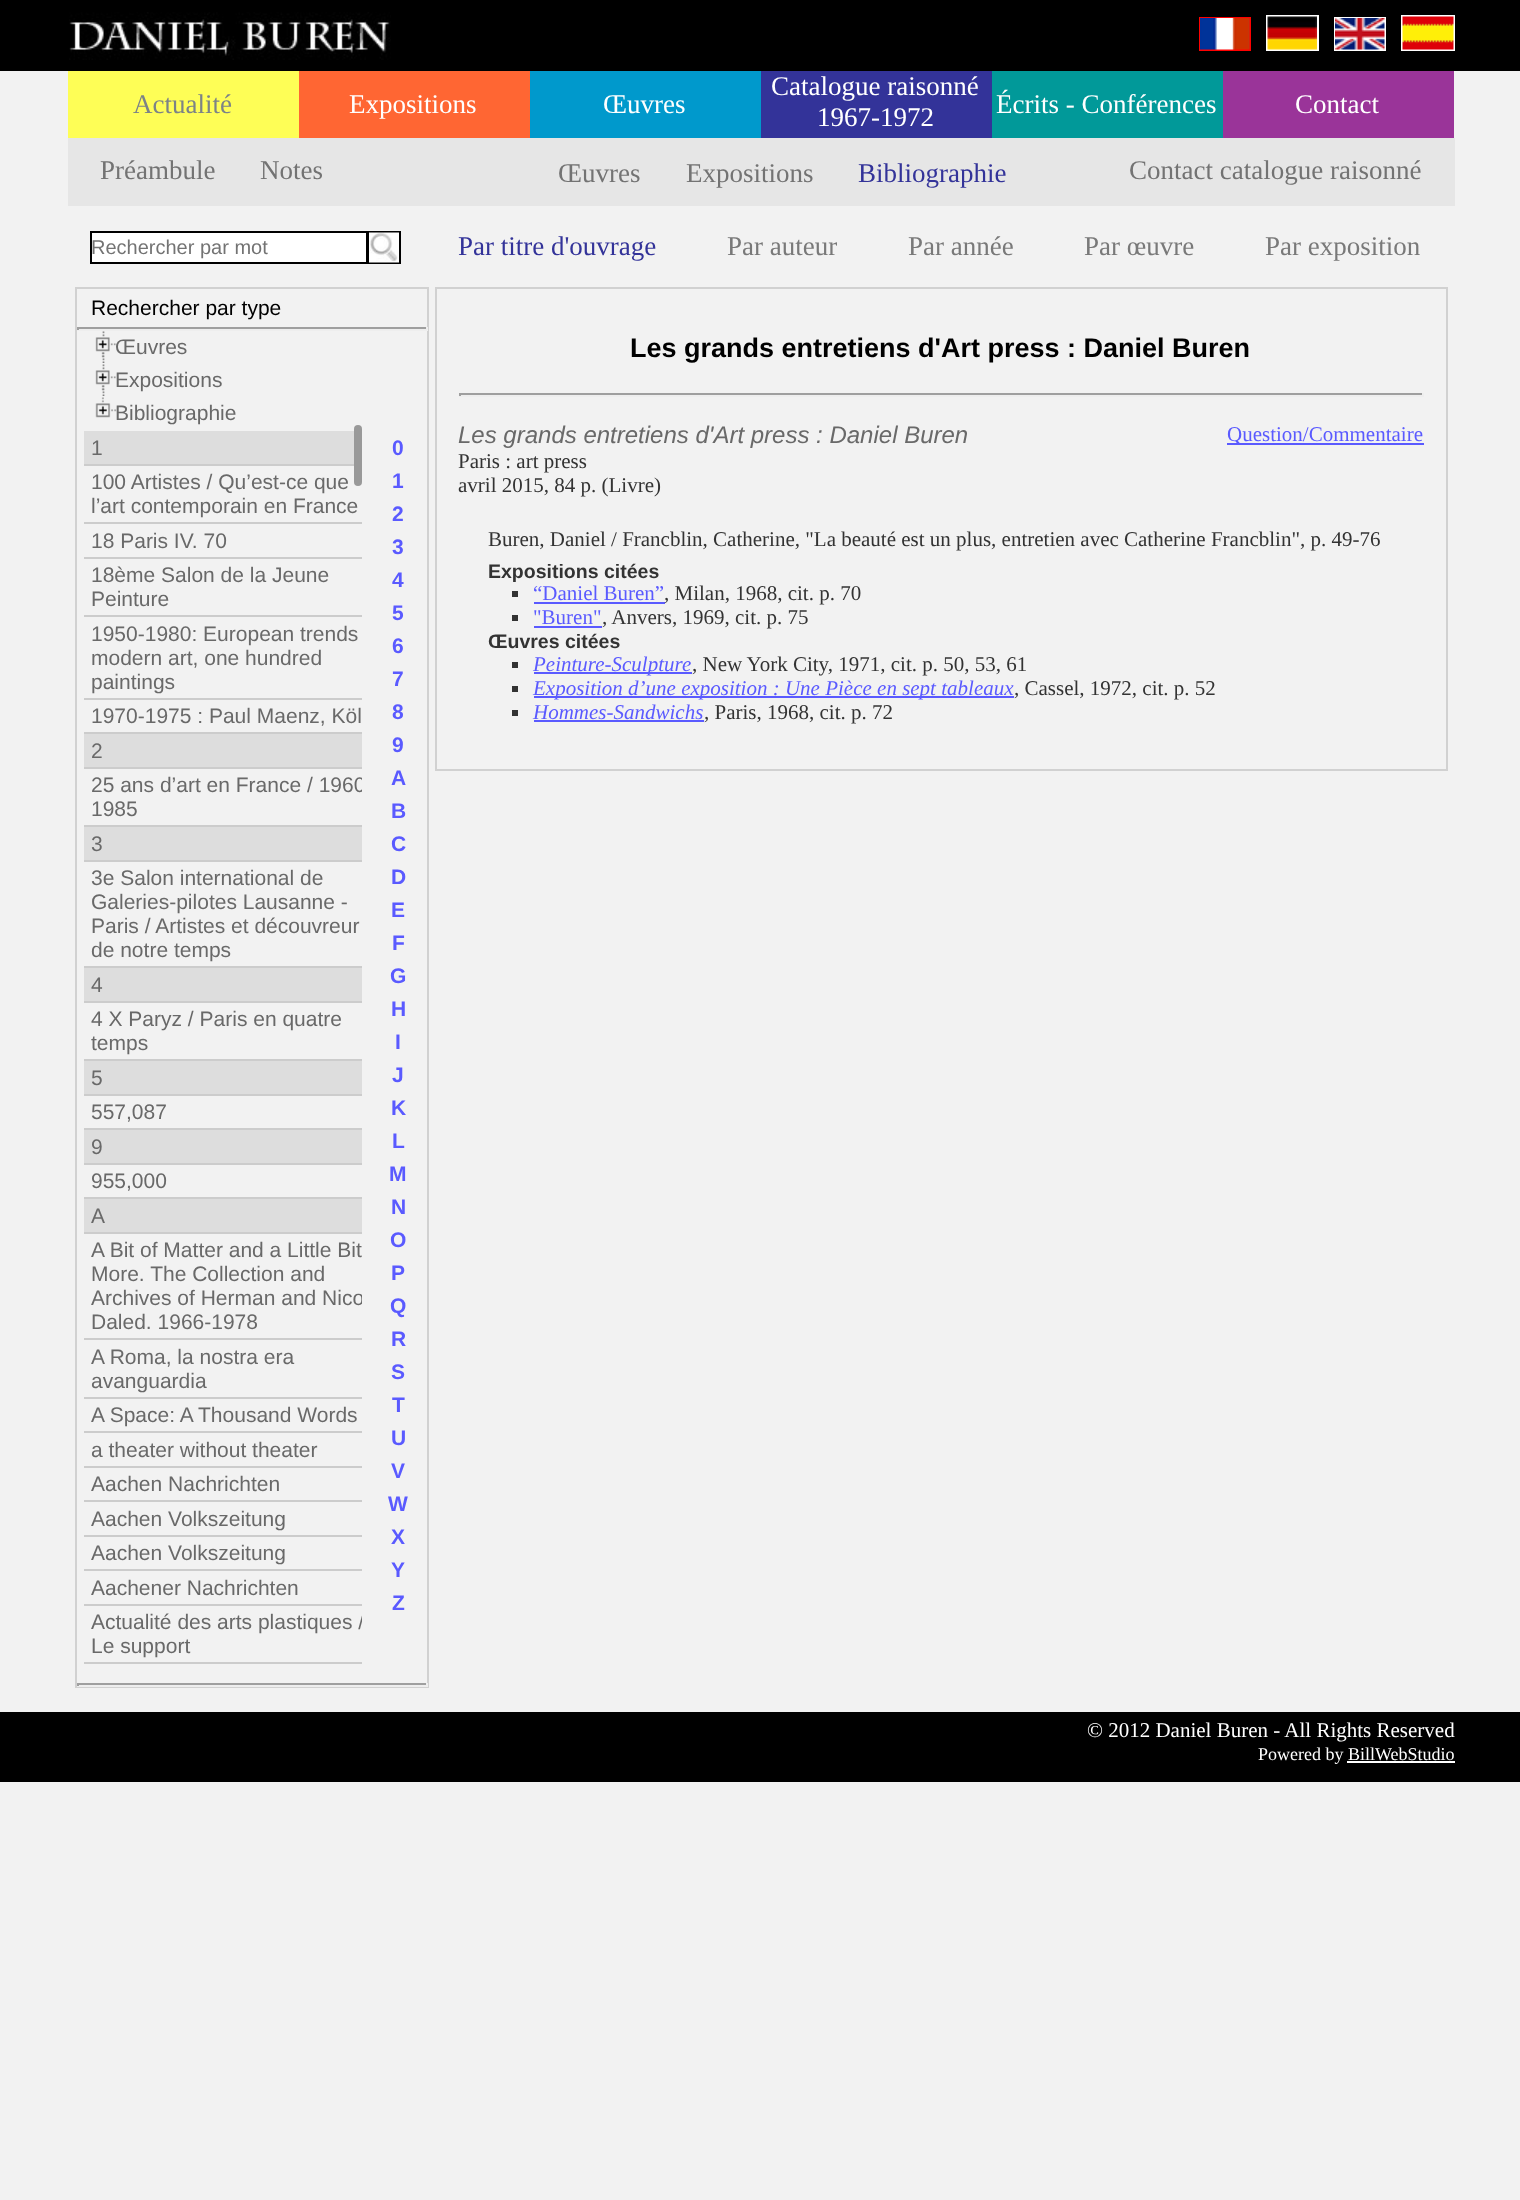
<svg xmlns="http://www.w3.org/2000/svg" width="1520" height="2200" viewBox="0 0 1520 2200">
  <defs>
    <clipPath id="clip1"><rect x="77" y="425" width="285" height="1252"/></clipPath>
  </defs>
  <rect width="100%" height="100%" fill="#f2f2f2"/>
  <rect x="0" y="0" width="1520" height="71" fill="#000000"/>
  <image x="69" y="12" width="322" height="48" href="img1.png"/>
  <rect x="1267" y="16" width="51" height="34" fill="none" stroke="#ffffff" stroke-width="2"/>
  <rect x="1402" y="16" width="52" height="34" fill="none" stroke="#ffffff" stroke-width="2"/>
  <rect x="1200" y="18" width="50" height="32" fill="none" stroke="#ff0000" stroke-width="2"/>
  <image x="1267" y="16" width="50" height="34" href="img2.png"/>
  <rect x="1335" y="18" width="50" height="32" fill="none" stroke="#ffffff" stroke-width="2"/>
  <image x="1402" y="16" width="52" height="34" href="img3.png"/>
  <image x="1200" y="18" width="50" height="32" href="img4.png"/>
  <image x="1335" y="18" width="50" height="32" href="img5.png"/>
  <rect x="68" y="71" width="231" height="67" fill="#fefe56"/>
  <text x="133" y="113" font-family="Liberation Serif" font-size="27" fill="#7c8387">Actualité</text>
  <rect x="299" y="71" width="231" height="67" fill="#ff6633"/>
  <text x="349" y="113" font-family="Liberation Serif" font-size="27" fill="#ffffff">Expositions</text>
  <rect x="530" y="71" width="231" height="67" fill="#0099cc"/>
  <text x="603" y="113" font-family="Liberation Serif" font-size="27" fill="#ffffff">Œuvres</text>
  <rect x="761" y="71" width="231" height="67" fill="#333399"/>
  <text x="771" y="95" font-family="Liberation Serif" font-size="27" fill="#ffffff">Catalogue raisonné</text>
  <text x="817" y="126" font-family="Liberation Serif" font-size="27" fill="#ffffff">1967-1972</text>
  <rect x="992" y="71" width="231" height="67" fill="#019999"/>
  <text x="996" y="113" font-family="Liberation Serif" font-size="27" fill="#ffffff">Écrits - Conférences</text>
  <rect x="1223" y="71" width="231" height="67" fill="#9a3499"/>
  <text x="1295" y="113" font-family="Liberation Serif" font-size="27" fill="#ffffff">Contact</text>
  <rect x="68" y="138" width="1387" height="68" fill="#e6e6e6"/>
  <text x="100" y="179" font-family="Liberation Serif" font-size="27" fill="#737373">Préambule</text>
  <text x="260" y="179" font-family="Liberation Serif" font-size="27" fill="#737373">Notes</text>
  <text x="558" y="182" font-family="Liberation Serif" font-size="27" fill="#737373">Œuvres</text>
  <text x="686" y="182" font-family="Liberation Serif" font-size="27" fill="#737373">Expositions</text>
  <text x="858" y="182" font-family="Liberation Serif" font-size="27" fill="#333399">Bibliographie</text>
  <text x="1129" y="179" font-family="Liberation Serif" font-size="27" fill="#737373">Contact catalogue raisonné</text>
  <rect x="91" y="232" width="276" height="31" fill="#ffffff" stroke="#000000" stroke-width="2"/>
  <text x="91" y="254" font-family="Liberation Sans" font-size="20" fill="#737373">Rechercher par mot</text>
  <rect x="369" y="232" width="31" height="31" fill="none" stroke="#000000" stroke-width="2"/>
  <image x="369" y="232" width="30" height="31" href="img6.png"/>
  <rect x="76" y="288" width="352" height="1399" fill="none" stroke="#d1d1d1" stroke-width="2"/>
  <text x="91" y="315" font-family="Liberation Sans" font-size="21" fill="#000000">Rechercher par type</text>
  <rect x="77" y="327" width="351" height="2" fill="#9f9f9f"/>
  <rect x="426" y="327" width="2" height="3" fill="#eeeeee"/>
  <rect x="77" y="329" width="351" height="2" fill="#eeeeee"/>
  <rect x="77" y="327" width="2" height="3" fill="#9f9f9f"/>
  <image x="102" y="331" width="3" height="32" href="img7.png"/>
  <image x="95" y="337" width="21" height="21" href="img8.png"/>
  <text x="115" y="354" font-family="Liberation Sans" font-size="21" fill="#696969">Œuvres</text>
  <image x="102" y="364" width="3" height="32" href="img7.png"/>
  <image x="95" y="370" width="21" height="21" href="img8.png"/>
  <text x="115" y="387" font-family="Liberation Sans" font-size="21" fill="#696969">Expositions</text>
  <image x="95" y="397" width="22" height="21" href="img9.png"/>
  <text x="115" y="420" font-family="Liberation Sans" font-size="21" fill="#696969">Bibliographie</text>
  <rect x="84" y="464" width="278" height="2" fill="#cccccc"/>
  <rect x="354" y="425" width="8" height="61" rx="4" fill="#999999"/>
  <rect x="84" y="431" width="270" height="33" fill="#dddddd"/>
  <text x="91" y="455" font-family="Liberation Sans" font-size="21" fill="#696969">1</text>
  <rect x="84" y="522" width="278" height="2" fill="#cccccc"/>
  <text x="91" y="489" font-family="Liberation Sans" font-size="21" fill="#696969">100 Artistes / Qu’est-ce que</text>
  <text x="91" y="513" font-family="Liberation Sans" font-size="21" fill="#696969">l’art contemporain en France</text>
  <rect x="84" y="557" width="278" height="2" fill="#cccccc"/>
  <text x="91" y="548" font-family="Liberation Sans" font-size="21" fill="#696969">18 Paris IV. 70</text>
  <rect x="84" y="615" width="278" height="2" fill="#cccccc"/>
  <text x="91" y="582" font-family="Liberation Sans" font-size="21" fill="#696969">18ème Salon de la Jeune</text>
  <text x="91" y="606" font-family="Liberation Sans" font-size="21" fill="#696969">Peinture</text>
  <rect x="84" y="698" width="278" height="2" fill="#cccccc"/>
  <text x="91" y="641" font-family="Liberation Sans" font-size="21" fill="#696969">1950-1980: European trends</text>
  <text x="91" y="665" font-family="Liberation Sans" font-size="21" fill="#696969">modern art, one hundred</text>
  <text x="91" y="689" font-family="Liberation Sans" font-size="21" fill="#696969">paintings</text>
  <rect x="84" y="732" width="278" height="2" fill="#cccccc"/>
  <text x="91" y="723" font-family="Liberation Sans" font-size="21" fill="#696969">1970-1975 : Paul Maenz, Köl</text>
  <rect x="84" y="734" width="278" height="33" fill="#dddddd"/>
  <rect x="84" y="767" width="278" height="2" fill="#cccccc"/>
  <text x="91" y="758" font-family="Liberation Sans" font-size="21" fill="#696969">2</text>
  <rect x="84" y="825" width="278" height="2" fill="#cccccc"/>
  <g clip-path="url(#clip1)">
    <text x="91" y="792" font-family="Liberation Sans" font-size="21" fill="#696969">25 ans d’art en France / 1960</text>
  </g>
  <text x="91" y="816" font-family="Liberation Sans" font-size="21" fill="#696969">1985</text>
  <rect x="84" y="827" width="278" height="33" fill="#dddddd"/>
  <rect x="84" y="860" width="278" height="2" fill="#cccccc"/>
  <text x="91" y="851" font-family="Liberation Sans" font-size="21" fill="#696969">3</text>
  <rect x="84" y="966" width="278" height="2" fill="#cccccc"/>
  <text x="91" y="885" font-family="Liberation Sans" font-size="21" fill="#696969">3e Salon international de</text>
  <text x="91" y="909" font-family="Liberation Sans" font-size="21" fill="#696969">Galeries-pilotes Lausanne -</text>
  <text x="91" y="933" font-family="Liberation Sans" font-size="21" fill="#696969">Paris / Artistes et découvreur</text>
  <text x="91" y="957" font-family="Liberation Sans" font-size="21" fill="#696969">de notre temps</text>
  <rect x="84" y="968" width="278" height="33" fill="#dddddd"/>
  <rect x="84" y="1001" width="278" height="2" fill="#cccccc"/>
  <text x="91" y="992" font-family="Liberation Sans" font-size="21" fill="#696969">4</text>
  <rect x="84" y="1059" width="278" height="2" fill="#cccccc"/>
  <text x="91" y="1026" font-family="Liberation Sans" font-size="21" fill="#696969">4 X Paryz / Paris en quatre</text>
  <text x="91" y="1050" font-family="Liberation Sans" font-size="21" fill="#696969">temps</text>
  <rect x="84" y="1061" width="278" height="33" fill="#dddddd"/>
  <rect x="84" y="1094" width="278" height="2" fill="#cccccc"/>
  <text x="91" y="1085" font-family="Liberation Sans" font-size="21" fill="#696969">5</text>
  <rect x="84" y="1128" width="278" height="2" fill="#cccccc"/>
  <text x="91" y="1119" font-family="Liberation Sans" font-size="21" fill="#696969">557,087</text>
  <rect x="84" y="1130" width="278" height="33" fill="#dddddd"/>
  <rect x="84" y="1163" width="278" height="2" fill="#cccccc"/>
  <text x="91" y="1154" font-family="Liberation Sans" font-size="21" fill="#696969">9</text>
  <rect x="84" y="1197" width="278" height="2" fill="#cccccc"/>
  <text x="91" y="1188" font-family="Liberation Sans" font-size="21" fill="#696969">955,000</text>
  <rect x="84" y="1199" width="278" height="33" fill="#dddddd"/>
  <rect x="84" y="1232" width="278" height="2" fill="#cccccc"/>
  <text x="91" y="1223" font-family="Liberation Sans" font-size="21" fill="#696969">A</text>
  <rect x="84" y="1338" width="278" height="2" fill="#cccccc"/>
  <text x="91" y="1257" font-family="Liberation Sans" font-size="21" fill="#696969">A Bit of Matter and a Little Bit</text>
  <text x="91" y="1281" font-family="Liberation Sans" font-size="21" fill="#696969">More. The Collection and</text>
  <g clip-path="url(#clip1)">
    <text x="91" y="1305" font-family="Liberation Sans" font-size="21" fill="#696969">Archives of Herman and Nico</text>
  </g>
  <text x="91" y="1329" font-family="Liberation Sans" font-size="21" fill="#696969">Daled. 1966-1978</text>
  <rect x="84" y="1397" width="278" height="2" fill="#cccccc"/>
  <text x="91" y="1364" font-family="Liberation Sans" font-size="21" fill="#696969">A Roma, la nostra era</text>
  <text x="91" y="1388" font-family="Liberation Sans" font-size="21" fill="#696969">avanguardia</text>
  <rect x="84" y="1431" width="278" height="2" fill="#cccccc"/>
  <text x="91" y="1422" font-family="Liberation Sans" font-size="21" fill="#696969">A Space: A Thousand Words</text>
  <rect x="84" y="1466" width="278" height="2" fill="#cccccc"/>
  <text x="91" y="1457" font-family="Liberation Sans" font-size="21" fill="#696969">a theater without theater</text>
  <rect x="84" y="1500" width="278" height="2" fill="#cccccc"/>
  <text x="91" y="1491" font-family="Liberation Sans" font-size="21" fill="#696969">Aachen Nachrichten</text>
  <rect x="84" y="1535" width="278" height="2" fill="#cccccc"/>
  <text x="91" y="1526" font-family="Liberation Sans" font-size="21" fill="#696969">Aachen Volkszeitung</text>
  <rect x="84" y="1569" width="278" height="2" fill="#cccccc"/>
  <text x="91" y="1560" font-family="Liberation Sans" font-size="21" fill="#696969">Aachen Volkszeitung</text>
  <rect x="84" y="1604" width="278" height="2" fill="#cccccc"/>
  <text x="91" y="1595" font-family="Liberation Sans" font-size="21" fill="#696969">Aachener Nachrichten</text>
  <rect x="84" y="1662" width="278" height="2" fill="#cccccc"/>
  <g clip-path="url(#clip1)">
    <text x="91" y="1629" font-family="Liberation Sans" font-size="21" fill="#696969">Actualité des arts plastiques /</text>
  </g>
  <text x="91" y="1653" font-family="Liberation Sans" font-size="21" fill="#696969">Le support</text>
  <text x="392" y="455" font-family="Liberation Sans" font-size="21" font-weight="bold" fill="#5a5aff">0</text>
  <text x="392" y="488" font-family="Liberation Sans" font-size="21" font-weight="bold" fill="#5a5aff">1</text>
  <text x="392" y="521" font-family="Liberation Sans" font-size="21" font-weight="bold" fill="#5a5aff">2</text>
  <text x="392" y="554" font-family="Liberation Sans" font-size="21" font-weight="bold" fill="#5a5aff">3</text>
  <text x="392" y="587" font-family="Liberation Sans" font-size="21" font-weight="bold" fill="#5a5aff">4</text>
  <text x="392" y="620" font-family="Liberation Sans" font-size="21" font-weight="bold" fill="#5a5aff">5</text>
  <text x="392" y="653" font-family="Liberation Sans" font-size="21" font-weight="bold" fill="#5a5aff">6</text>
  <text x="392" y="686" font-family="Liberation Sans" font-size="21" font-weight="bold" fill="#5a5aff">7</text>
  <text x="392" y="719" font-family="Liberation Sans" font-size="21" font-weight="bold" fill="#5a5aff">8</text>
  <text x="392" y="752" font-family="Liberation Sans" font-size="21" font-weight="bold" fill="#5a5aff">9</text>
  <text x="391" y="785" font-family="Liberation Sans" font-size="21" font-weight="bold" fill="#5a5aff">A</text>
  <text x="391" y="818" font-family="Liberation Sans" font-size="21" font-weight="bold" fill="#5a5aff">B</text>
  <text x="391" y="851" font-family="Liberation Sans" font-size="21" font-weight="bold" fill="#5a5aff">C</text>
  <text x="391" y="884" font-family="Liberation Sans" font-size="21" font-weight="bold" fill="#5a5aff">D</text>
  <text x="391" y="917" font-family="Liberation Sans" font-size="21" font-weight="bold" fill="#5a5aff">E</text>
  <text x="392" y="950" font-family="Liberation Sans" font-size="21" font-weight="bold" fill="#5a5aff">F</text>
  <text x="390" y="983" font-family="Liberation Sans" font-size="21" font-weight="bold" fill="#5a5aff">G</text>
  <text x="391" y="1016" font-family="Liberation Sans" font-size="21" font-weight="bold" fill="#5a5aff">H</text>
  <text x="395" y="1049" font-family="Liberation Sans" font-size="21" font-weight="bold" fill="#5a5aff">I</text>
  <text x="392" y="1082" font-family="Liberation Sans" font-size="21" font-weight="bold" fill="#5a5aff">J</text>
  <text x="391" y="1115" font-family="Liberation Sans" font-size="21" font-weight="bold" fill="#5a5aff">K</text>
  <text x="392" y="1148" font-family="Liberation Sans" font-size="21" font-weight="bold" fill="#5a5aff">L</text>
  <text x="389" y="1181" font-family="Liberation Sans" font-size="21" font-weight="bold" fill="#5a5aff">M</text>
  <text x="391" y="1214" font-family="Liberation Sans" font-size="21" font-weight="bold" fill="#5a5aff">N</text>
  <text x="390" y="1247" font-family="Liberation Sans" font-size="21" font-weight="bold" fill="#5a5aff">O</text>
  <text x="391" y="1280" font-family="Liberation Sans" font-size="21" font-weight="bold" fill="#5a5aff">P</text>
  <text x="390" y="1313" font-family="Liberation Sans" font-size="21" font-weight="bold" fill="#5a5aff">Q</text>
  <text x="391" y="1346" font-family="Liberation Sans" font-size="21" font-weight="bold" fill="#5a5aff">R</text>
  <text x="391" y="1379" font-family="Liberation Sans" font-size="21" font-weight="bold" fill="#5a5aff">S</text>
  <text x="392" y="1412" font-family="Liberation Sans" font-size="21" font-weight="bold" fill="#5a5aff">T</text>
  <text x="391" y="1445" font-family="Liberation Sans" font-size="21" font-weight="bold" fill="#5a5aff">U</text>
  <text x="391" y="1478" font-family="Liberation Sans" font-size="21" font-weight="bold" fill="#5a5aff">V</text>
  <text x="388" y="1511" font-family="Liberation Sans" font-size="21" font-weight="bold" fill="#5a5aff">W</text>
  <text x="391" y="1544" font-family="Liberation Sans" font-size="21" font-weight="bold" fill="#5a5aff">X</text>
  <text x="391" y="1577" font-family="Liberation Sans" font-size="21" font-weight="bold" fill="#5a5aff">Y</text>
  <text x="392" y="1610" font-family="Liberation Sans" font-size="21" font-weight="bold" fill="#5a5aff">Z</text>
  <rect x="77" y="1683" width="351" height="2" fill="#9f9f9f"/>
  <rect x="426" y="1683" width="2" height="3" fill="#eeeeee"/>
  <rect x="77" y="1685" width="351" height="2" fill="#eeeeee"/>
  <rect x="77" y="1683" width="2" height="3" fill="#9f9f9f"/>
  <text x="458" y="255" font-family="Liberation Serif" font-size="27" fill="#333399">Par titre d'ouvrage</text>
  <text x="727" y="255" font-family="Liberation Serif" font-size="27" fill="#797979">Par auteur</text>
  <text x="908" y="255" font-family="Liberation Serif" font-size="27" fill="#797979">Par année</text>
  <text x="1084" y="255" font-family="Liberation Serif" font-size="27" fill="#797979">Par œuvre</text>
  <text x="1265" y="255" font-family="Liberation Serif" font-size="27" fill="#797979">Par exposition</text>
  <rect x="436" y="288" width="1011" height="482" fill="none" stroke="#d1d1d1" stroke-width="2"/>
  <text x="630" y="357" font-family="Liberation Sans" font-size="27" font-weight="bold" fill="#000000">Les grands entretiens d'Art press : Daniel Buren</text>
  <rect x="459" y="393" width="965" height="2" fill="#9f9f9f"/>
  <rect x="1422" y="393" width="2" height="3" fill="#eeeeee"/>
  <rect x="459" y="395" width="965" height="2" fill="#eeeeee"/>
  <rect x="459" y="393" width="2" height="3" fill="#9f9f9f"/>
  <text x="458" y="443" font-family="Liberation Sans" font-size="24" font-style="italic" fill="#696969">Les grands entretiens d'Art press : Daniel Buren</text>
  <rect x="1227" y="443" width="197" height="2" fill="#5a5aff"/>
  <text x="1227" y="441" font-family="Liberation Serif" font-size="21" fill="#5a5aff">Question/Commentaire</text>
  <text x="458" y="468" font-family="Liberation Serif" font-size="21" fill="#333333">Paris : art press</text>
  <text x="458" y="492" font-family="Liberation Serif" font-size="21" fill="#333333">avril 2015, 84 p. (Livre)</text>
  <text x="488" y="546" font-family="Liberation Serif" font-size="21" fill="#333333">Buren, Daniel / Francblin, Catherine, "La beauté est un plus, entretien avec Catherine Francblin", p. 49-76</text>
  <text x="488" y="578" font-family="Liberation Sans" font-size="19.5" font-weight="bold" fill="#333333">Expositions citées</text>
  <rect x="512" y="591" width="6" height="6" fill="#333333"/>
  <text x="533" y="600" font-family="Liberation Serif" font-size="21" fill="#5a5aff">“Daniel Buren”</text>
  <rect x="534" y="602" width="131" height="2" fill="#5a5aff"/>
  <text x="664" y="600" font-family="Liberation Serif" font-size="21" fill="#333333">, Milan, 1968, cit. p. 70</text>
  <rect x="512" y="615" width="6" height="6" fill="#333333"/>
  <text x="533" y="624" font-family="Liberation Serif" font-size="21" fill="#5a5aff">"Buren"</text>
  <rect x="534" y="626" width="68" height="2" fill="#5a5aff"/>
  <text x="602" y="624" font-family="Liberation Serif" font-size="21" fill="#333333">, Anvers, 1969, cit. p. 75</text>
  <text x="488" y="648" font-family="Liberation Sans" font-size="19.5" font-weight="bold" fill="#333333">Œuvres citées</text>
  <rect x="512" y="662" width="6" height="6" fill="#333333"/>
  <rect x="534" y="672" width="158" height="2" fill="#5a5aff"/>
  <text x="533" y="671" font-family="Liberation Serif" font-size="21" font-style="italic" fill="#5a5aff">Peinture-Sculpture</text>
  <text x="692" y="671" font-family="Liberation Serif" font-size="21" fill="#333333">, New York City, 1971, cit. p. 50, 53, 61</text>
  <rect x="512" y="686" width="6" height="6" fill="#333333"/>
  <rect x="534" y="696" width="480" height="2" fill="#5a5aff"/>
  <text x="533" y="695" font-family="Liberation Serif" font-size="21" font-style="italic" fill="#5a5aff">Exposition d’une exposition : Une Pièce en sept tableaux</text>
  <text x="1014" y="695" font-family="Liberation Serif" font-size="21" fill="#333333">, Cassel, 1972, cit. p. 52</text>
  <rect x="512" y="710" width="6" height="6" fill="#333333"/>
  <text x="533" y="719" font-family="Liberation Serif" font-size="21" font-style="italic" fill="#5a5aff">Hommes-Sandwichs</text>
  <rect x="534" y="720" width="170" height="2" fill="#5a5aff"/>
  <text x="704" y="719" font-family="Liberation Serif" font-size="21" fill="#333333">, Paris, 1968, cit. p. 72</text>
  <rect x="0" y="1712" width="1520" height="70" fill="#000000"/>
  <text x="1087" y="1737" font-family="Liberation Serif" font-size="21" fill="#ffffff">© 2012 Daniel Buren - All Rights Reserved</text>
  <text x="1258" y="1760" font-family="Liberation Serif" font-size="18" fill="#ffffff">Powered by BillWebStudio</text>
  <rect x="1347" y="1761" width="108" height="2" fill="#ffffff"/>
</svg>
